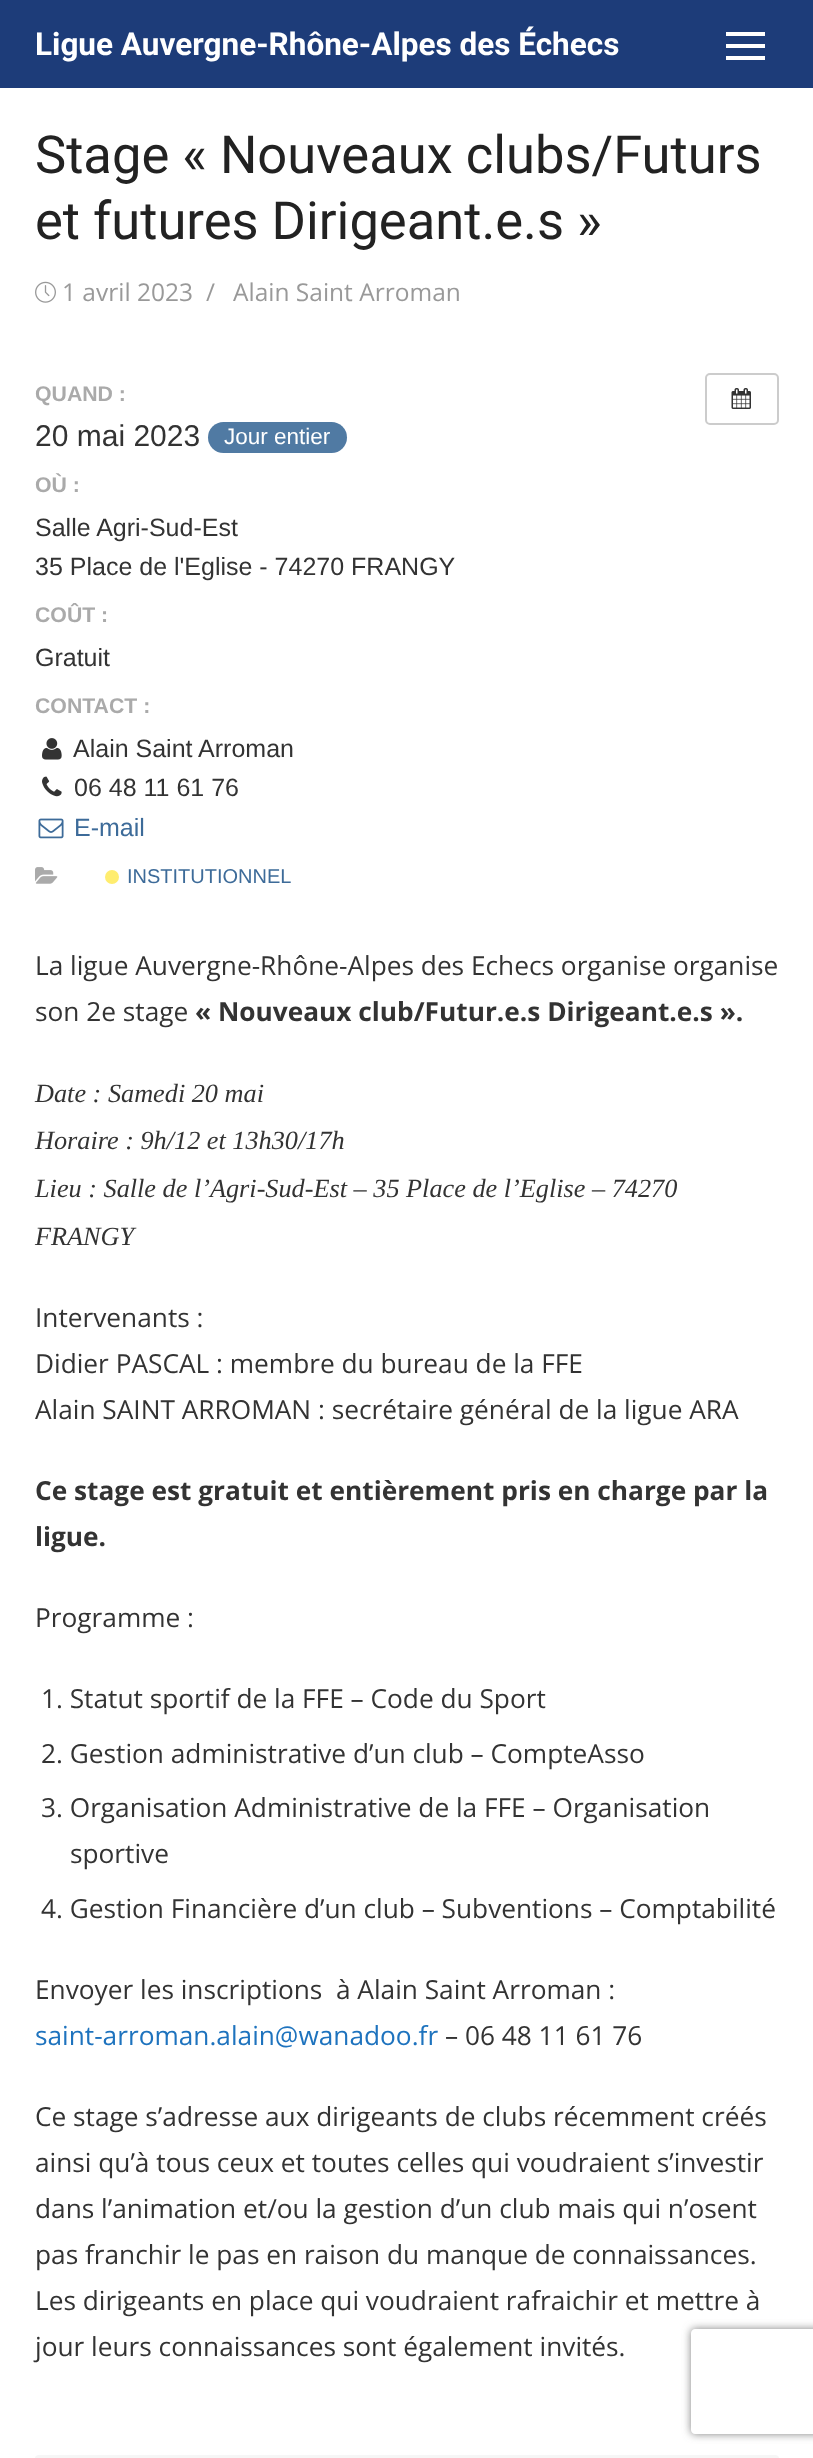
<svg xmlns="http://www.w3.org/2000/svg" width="813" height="2458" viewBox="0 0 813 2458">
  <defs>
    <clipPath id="clip1"><path d="M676 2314H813V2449H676ZM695 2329H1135C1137 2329 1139 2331 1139 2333V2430C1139 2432 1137 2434 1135 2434H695C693 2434 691 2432 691 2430V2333C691 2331 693 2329 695 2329Z" clip-rule="evenodd"/></clipPath>
    <filter id="blur1" x="-50%" y="-200%" width="200%" height="500%"><feGaussianBlur stdDeviation="4.5"/></filter>
  </defs>
  <rect width="100%" height="100%" fill="#ffffff"/>
  <rect x="0" y="0" width="813" height="88" fill="#1d3c79"/>
  <text x="35" y="55" font-family="Roboto" font-size="31.5" font-weight="bold" fill="#ffffff">Ligue Auvergne-Rhône-Alpes des Échecs</text>
  <rect x="726" y="44" width="39" height="4" fill="#ffffff"/>
  <rect x="726" y="32" width="39" height="4" fill="#ffffff"/>
  <rect x="726" y="56" width="39" height="4" fill="#ffffff"/>
  <text x="35" y="173" font-family="Roboto" font-size="52.5" fill="#222222">Stage « Nouveaux clubs/Futurs</text>
  <text x="35" y="239" font-family="Roboto" font-size="52.5" fill="#222222">et futures Dirigeant.e.s »</text>
  <image x="35" y="281" width="21" height="22" href="img1.png"/>
  <text x="62" y="301" font-family="Open Sans" font-size="24.5" fill="#999999">1 avril 2023</text>
  <text x="206" y="301" font-family="Open Sans" font-size="24.5" fill="#999999">/</text>
  <text x="233" y="301" font-family="Open Sans" font-size="24.5" fill="#999999">Alain Saint Arroman</text>
  <text x="35" y="401" font-family="Liberation Sans" font-size="21.25" font-weight="bold" fill="#aaaaaa">QUAND :</text>
  <text x="35" y="446" font-family="Liberation Sans" font-size="30" fill="#333333">20 mai 2023</text>
  <rect x="208" y="422" width="139" height="31" rx="15.5" fill="#507aa3"/>
  <text x="224" y="444" font-family="Liberation Sans" font-size="22.5" fill="#ffffff">Jour entier</text>
  <text x="35" y="492" font-family="Liberation Sans" font-size="21.25" font-weight="bold" fill="#aaaaaa">OÙ :</text>
  <text x="35" y="536" font-family="Liberation Sans" font-size="25" fill="#333333">Salle Agri-Sud-Est</text>
  <text x="35" y="575" font-family="Liberation Sans" font-size="25" fill="#333333">35 Place de l'Eglise - 74270 FRANGY</text>
  <text x="35" y="622" font-family="Liberation Sans" font-size="21.25" font-weight="bold" fill="#aaaaaa">COÛT :</text>
  <text x="35" y="666" font-family="Liberation Sans" font-size="25" fill="#333333">Gratuit</text>
  <text x="35" y="713" font-family="Liberation Sans" font-size="21.25" font-weight="bold" fill="#aaaaaa">CONTACT :</text>
  <image x="42" y="738" width="20" height="22" href="img2.png"/>
  <text x="73" y="757" font-family="Liberation Sans" font-size="25" fill="#333333">Alain Saint Arroman</text>
  <image x="42" y="776" width="20" height="21" href="img3.png"/>
  <text x="74" y="796" font-family="Liberation Sans" font-size="25" fill="#333333">06 48 11 61 76</text>
  <image x="38" y="818" width="26" height="21" href="img4.png"/>
  <text x="74" y="836" font-family="Liberation Sans" font-size="25" fill="#3d6b99">E-mail</text>
  <image x="35" y="867" width="23" height="17" href="img5.png"/>
  <circle cx="112" cy="877" r="7" fill="#ffed6f"/>
  <text x="127" y="883" font-family="Liberation Sans" font-size="20" fill="#3d6b99">INSTITUTIONNEL</text>
  <rect x="706" y="374" width="72" height="50" rx="4" fill="none" stroke="#cccccc" stroke-width="2"/>
  <image x="731" y="388" width="20" height="21" href="img6.png"/>
  <text x="35" y="975" font-family="Open Sans" font-size="26.25" fill="#333333">La ligue Auvergne-Rhône-Alpes des Echecs organise organise</text>
  <text x="35" y="1021" font-family="Open Sans" font-size="26.25" fill="#333333">son 2e stage</text>
  <text x="195" y="1021" font-family="Open Sans" font-size="26.25" font-weight="bold" fill="#333333">« Nouveaux club/Futur.e.s Dirigeant.e.s ».</text>
  <text x="35" y="1102" font-family="Liberation Serif" font-size="26.25" font-style="italic" fill="#333333">Date : Samedi 20 mai</text>
  <text x="35" y="1149" font-family="Liberation Serif" font-size="26.25" font-style="italic" fill="#333333">Horaire : 9h/12 et 13h30/17h</text>
  <text x="35" y="1197" font-family="Liberation Serif" font-size="26.25" font-style="italic" fill="#333333">Lieu : Salle de l’Agri-Sud-Est – 35 Place de l’Eglise – 74270</text>
  <text x="35" y="1245" font-family="Liberation Serif" font-size="26.25" font-style="italic" fill="#333333">FRANGY</text>
  <text x="35" y="1327" font-family="Open Sans" font-size="26.25" fill="#333333">Intervenants :</text>
  <text x="35" y="1373" font-family="Open Sans" font-size="26.25" fill="#333333">Didier PASCAL : membre du bureau de la FFE</text>
  <text x="35" y="1419" font-family="Open Sans" font-size="26.25" fill="#333333">Alain SAINT ARROMAN : secrétaire général de la ligue ARA</text>
  <text x="35" y="1500" font-family="Open Sans" font-size="26.25" font-weight="bold" fill="#333333">Ce stage est gratuit et entièrement pris en charge par la</text>
  <text x="35" y="1546" font-family="Open Sans" font-size="26.25" font-weight="bold" fill="#333333">ligue.</text>
  <text x="35" y="1627" font-family="Open Sans" font-size="26.25" fill="#333333">Programme :</text>
  <text x="41" y="1708" font-family="Open Sans" font-size="26.25" fill="#333333">1. Statut sportif de la FFE – Code du Sport</text>
  <text x="41" y="1763" font-family="Open Sans" font-size="26.25" fill="#333333">2. Gestion administrative d’un club – CompteAsso</text>
  <text x="41" y="1817" font-family="Open Sans" font-size="26.25" fill="#333333">3. Organisation Administrative de la FFE – Organisation</text>
  <text x="70" y="1863" font-family="Open Sans" font-size="26.25" fill="#333333">sportive</text>
  <text x="41" y="1918" font-family="Open Sans" font-size="26.25" fill="#333333">4. Gestion Financière d’un club – Subventions – Comptabilité</text>
  <text x="35" y="1999" font-family="Open Sans" font-size="26.25" fill="#333333" xml:space="preserve">Envoyer les inscriptions  à Alain Saint Arroman :</text>
  <text x="35" y="2045" font-family="Open Sans" font-size="26.25" fill="#1e73be">saint-arroman.alain@wanadoo.fr</text>
  <text x="445" y="2045" font-family="Open Sans" font-size="26.25" fill="#333333">– 06 48 11 61 76</text>
  <text x="35" y="2126" font-family="Open Sans" font-size="26.25" fill="#333333">Ce stage s’adresse aux dirigeants de clubs récemment créés</text>
  <text x="35" y="2172" font-family="Open Sans" font-size="26.25" fill="#333333">ainsi qu’à tous ceux et toutes celles qui voudraient s’investir</text>
  <text x="35" y="2218" font-family="Open Sans" font-size="26.25" fill="#333333">dans l’animation et/ou la gestion d’un club mais qui n’osent</text>
  <text x="35" y="2264" font-family="Open Sans" font-size="26.25" fill="#333333">pas franchir le pas en raison du manque de connaissances.</text>
  <text x="35" y="2310" font-family="Open Sans" font-size="26.25" fill="#333333">Les dirigeants en place qui voudraient rafraichir et mettre à</text>
  <text x="35" y="2356" font-family="Open Sans" font-size="26.25" fill="#333333">jour leurs connaissances sont également invités.</text>
  <rect x="35" y="2455" width="744" height="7" rx="4" fill="#f6f6f6"/>
  <g clip-path="url(#clip1)">
    <rect x="691" y="2329" width="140" height="105" rx="4" fill="#808080" filter="url(#blur1)"/>
  </g>
</svg>
